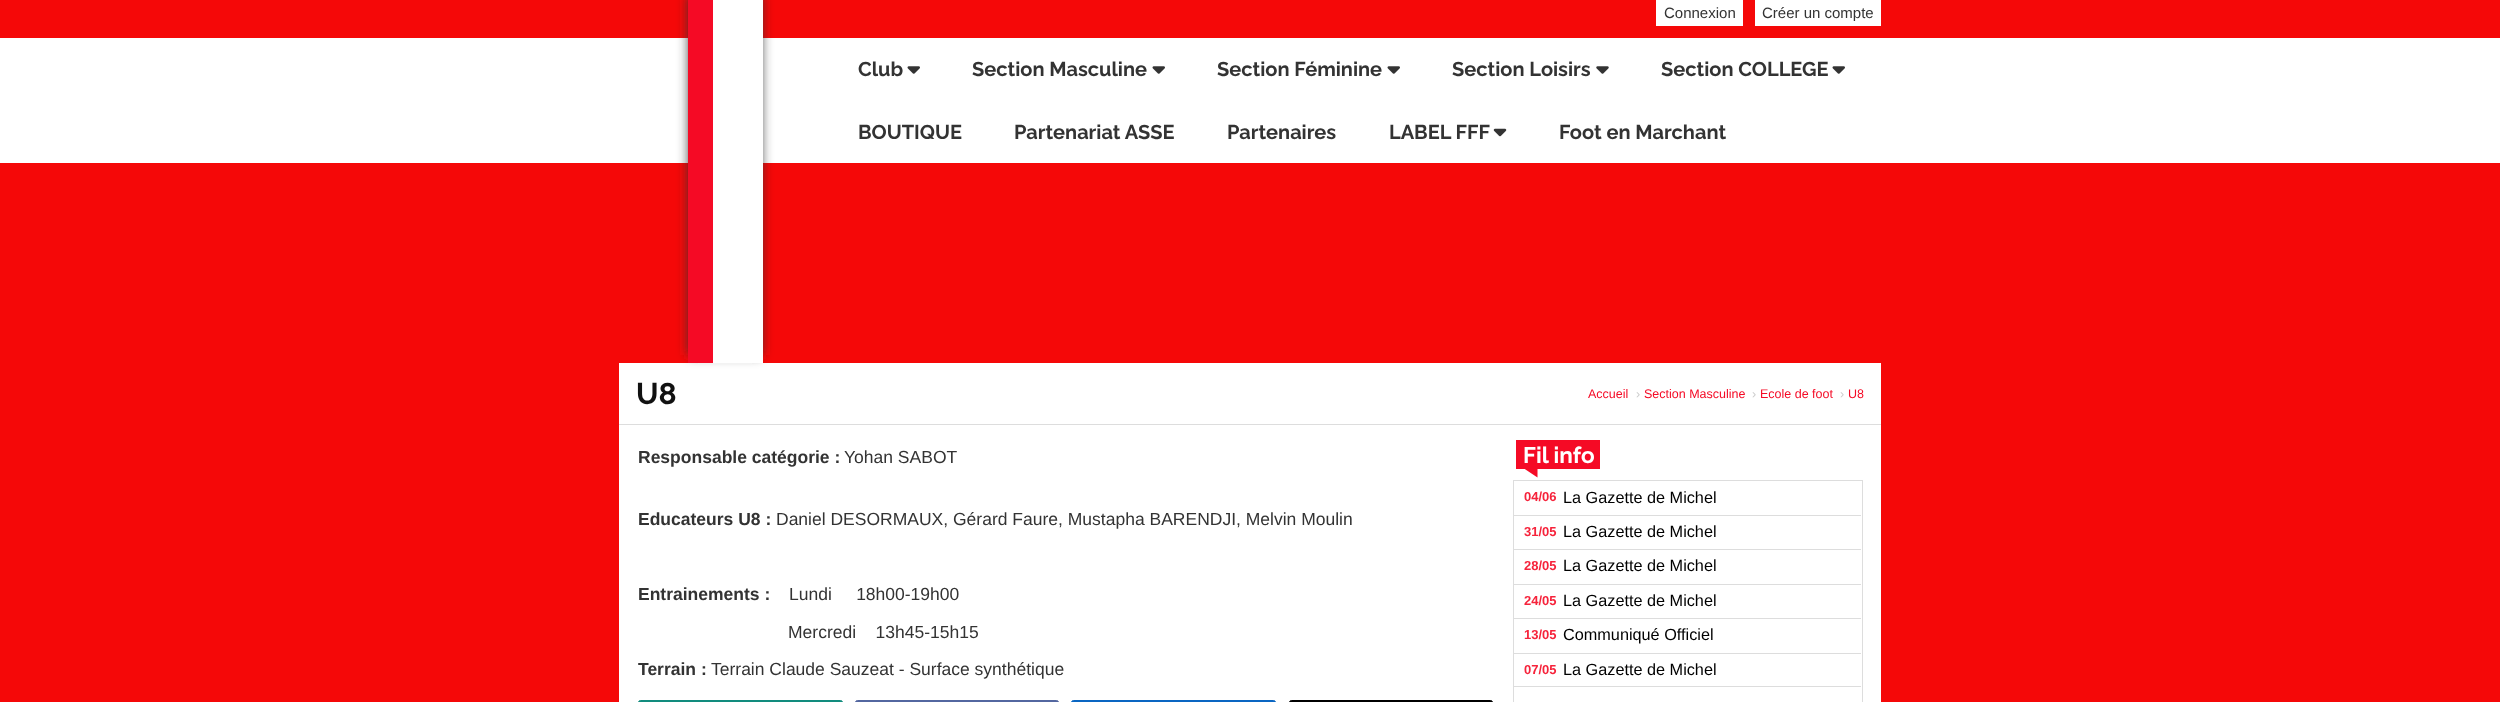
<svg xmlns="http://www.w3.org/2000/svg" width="2500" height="702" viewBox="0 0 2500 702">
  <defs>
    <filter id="blur1" x="-50%" y="-200%" width="200%" height="500%"><feGaussianBlur stdDeviation="6"/></filter>
  </defs>
  <rect width="100%" height="100%" fill="#f50808"/>
  <rect x="0" y="38" width="2500" height="125" fill="#ffffff"/>
  <rect x="619" y="363" width="1262" height="61" fill="#ffffff"/>
  <rect x="689" y="-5" width="72" height="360" fill="#333333" filter="url(#blur1)"/>
  <rect x="688" y="0" width="25" height="363" fill="#f50a25"/>
  <rect x="713" y="0" width="50" height="363" fill="#ffffff"/>
  <rect x="1656" y="0" width="87" height="26" fill="#ffffff"/>
  <text x="1664" y="18" font-family="Liberation Sans" font-size="15" fill="#333333">Connexion</text>
  <rect x="1755" y="0" width="126" height="26" fill="#ffffff"/>
  <text x="1762" y="18" font-family="Liberation Sans" font-size="15" fill="#333333">Créer un compte</text>
  <text x="858" y="76" font-family="Raleway" font-size="20" font-weight="bold" fill="#333333">Club</text>
  <image x="907" y="66" width="13" height="8" href="img1.png"/>
  <text x="972" y="76" font-family="Raleway" font-size="20" font-weight="bold" fill="#333333">Section Masculine</text>
  <image x="1152" y="66" width="13" height="8" href="img1.png"/>
  <text x="1217" y="76" font-family="Raleway" font-size="20" font-weight="bold" fill="#333333">Section Féminine</text>
  <image x="1387" y="66" width="13" height="8" href="img1.png"/>
  <text x="1452" y="76" font-family="Raleway" font-size="20" font-weight="bold" fill="#333333">Section Loisirs</text>
  <image x="1596" y="66" width="13" height="8" href="img2.png"/>
  <text x="1661" y="76" font-family="Raleway" font-size="20" font-weight="bold" fill="#333333">Section COLLEGE</text>
  <image x="1832" y="66" width="13" height="8" href="img1.png"/>
  <text x="858" y="139" font-family="Raleway" font-size="20" font-weight="bold" fill="#333333">BOUTIQUE</text>
  <text x="1014" y="139" font-family="Raleway" font-size="20" font-weight="bold" fill="#333333">Partenariat ASSE</text>
  <text x="1227" y="139" font-family="Raleway" font-size="20" font-weight="bold" fill="#333333">Partenaires</text>
  <text x="1389" y="139" font-family="Raleway" font-size="20" font-weight="bold" fill="#333333">LABEL FFF</text>
  <image x="1493" y="128" width="14" height="9" href="img3.png"/>
  <text x="1559" y="139" font-family="Raleway" font-size="20" font-weight="bold" fill="#333333">Foot en Marchant</text>
  <rect x="619" y="424" width="1262" height="1" fill="#dddddd"/>
  <text x="636" y="404" font-family="Raleway" font-size="30" font-weight="bold" fill="#111111">U8</text>
  <text x="1588" y="398" font-family="Liberation Sans" font-size="12.5" fill="#f50a25">Accueil</text>
  <text x="1636" y="398" font-family="Liberation Sans" font-size="12.5" fill="#cccccc">›</text>
  <text x="1644" y="398" font-family="Liberation Sans" font-size="12.5" fill="#f50a25">Section Masculine</text>
  <text x="1752" y="398" font-family="Liberation Sans" font-size="12.5" fill="#cccccc">›</text>
  <text x="1760" y="398" font-family="Liberation Sans" font-size="12.5" fill="#f50a25">Ecole de foot</text>
  <text x="1840" y="398" font-family="Liberation Sans" font-size="12.5" fill="#cccccc">›</text>
  <text x="1848" y="398" font-family="Liberation Sans" font-size="12.5" fill="#f50a25">U8</text>
  <rect x="619" y="425" width="1262" height="277" fill="#ffffff"/>
  <text x="638" y="463" font-family="Liberation Sans" font-size="17.5" font-weight="bold" fill="#333333">Responsable catégorie :</text>
  <text x="844" y="463" font-family="Liberation Sans" font-size="17.5" fill="#333333">Yohan SABOT</text>
  <text x="638" y="525" font-family="Liberation Sans" font-size="17.5" font-weight="bold" fill="#333333">Educateurs U8 :</text>
  <text x="776" y="525" font-family="Liberation Sans" font-size="17.5" fill="#333333">Daniel DESORMAUX, Gérard Faure, Mustapha BARENDJI, Melvin Moulin</text>
  <text x="638" y="600" font-family="Liberation Sans" font-size="17.5" font-weight="bold" fill="#333333">Entrainements :</text>
  <text x="789" y="600" font-family="Liberation Sans" font-size="17.5" fill="#333333" xml:space="preserve">Lundi     18h00-19h00</text>
  <text x="788" y="638" font-family="Liberation Sans" font-size="17.5" fill="#333333" xml:space="preserve">Mercredi    13h45-15h15</text>
  <text x="638" y="675" font-family="Liberation Sans" font-size="17.5" font-weight="bold" fill="#333333">Terrain :</text>
  <text x="711" y="675" font-family="Liberation Sans" font-size="17.5" fill="#333333">Terrain Claude Sauzeat - Surface synthétique</text>
  <rect x="638.5" y="700.5" width="204" height="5" rx="2" fill="#128c7e" stroke="#128c7e"/>
  <rect x="855.5" y="700.5" width="203" height="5" rx="2" fill="#5367a0" stroke="#5367a0"/>
  <rect x="1071.5" y="700.5" width="204" height="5" rx="2" fill="#0a66c2" stroke="#0a66c2"/>
  <rect x="1289.5" y="700.5" width="203" height="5" rx="2" fill="#000000" stroke="#000000"/>
  <path d="M1522.5 467.5H1537.5V477.5Z" fill="#f50a25"/>
  <rect x="1516" y="440" width="84" height="29" fill="#f50a25"/>
  <text x="1523" y="463" font-family="Raleway" font-size="22.5" font-weight="bold" fill="#ffffff">Fil info</text>
  <rect x="1513.5" y="480.5" width="349" height="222" fill="none" stroke="#dddddd"/>
  <rect x="1514" y="515" width="347" height="1" fill="#dddddd"/>
  <text x="1524" y="501" font-family="Liberation Sans" font-size="13" font-weight="bold" fill="#f6233b">04/06</text>
  <text x="1563" y="503" font-family="Liberation Sans" font-size="16.25" fill="#000000">La Gazette de Michel</text>
  <rect x="1514" y="549" width="347" height="1" fill="#dddddd"/>
  <text x="1524" y="536" font-family="Liberation Sans" font-size="13" font-weight="bold" fill="#f6233b">31/05</text>
  <text x="1563" y="537" font-family="Liberation Sans" font-size="16.25" fill="#000000">La Gazette de Michel</text>
  <rect x="1514" y="584" width="347" height="1" fill="#dddddd"/>
  <text x="1524" y="570" font-family="Liberation Sans" font-size="13" font-weight="bold" fill="#f6233b">28/05</text>
  <text x="1563" y="571" font-family="Liberation Sans" font-size="16.25" fill="#000000">La Gazette de Michel</text>
  <rect x="1514" y="618" width="347" height="1" fill="#dddddd"/>
  <text x="1524" y="605" font-family="Liberation Sans" font-size="13" font-weight="bold" fill="#f6233b">24/05</text>
  <text x="1563" y="606" font-family="Liberation Sans" font-size="16.25" fill="#000000">La Gazette de Michel</text>
  <rect x="1514" y="653" width="347" height="1" fill="#dddddd"/>
  <text x="1524" y="639" font-family="Liberation Sans" font-size="13" font-weight="bold" fill="#f6233b">13/05</text>
  <text x="1563" y="640" font-family="Liberation Sans" font-size="16.25" fill="#000000">Communiqué Officiel</text>
  <rect x="1514" y="686" width="347" height="1" fill="#dddddd"/>
  <text x="1524" y="674" font-family="Liberation Sans" font-size="13" font-weight="bold" fill="#f6233b">07/05</text>
  <text x="1563" y="675" font-family="Liberation Sans" font-size="16.25" fill="#000000">La Gazette de Michel</text>
</svg>
